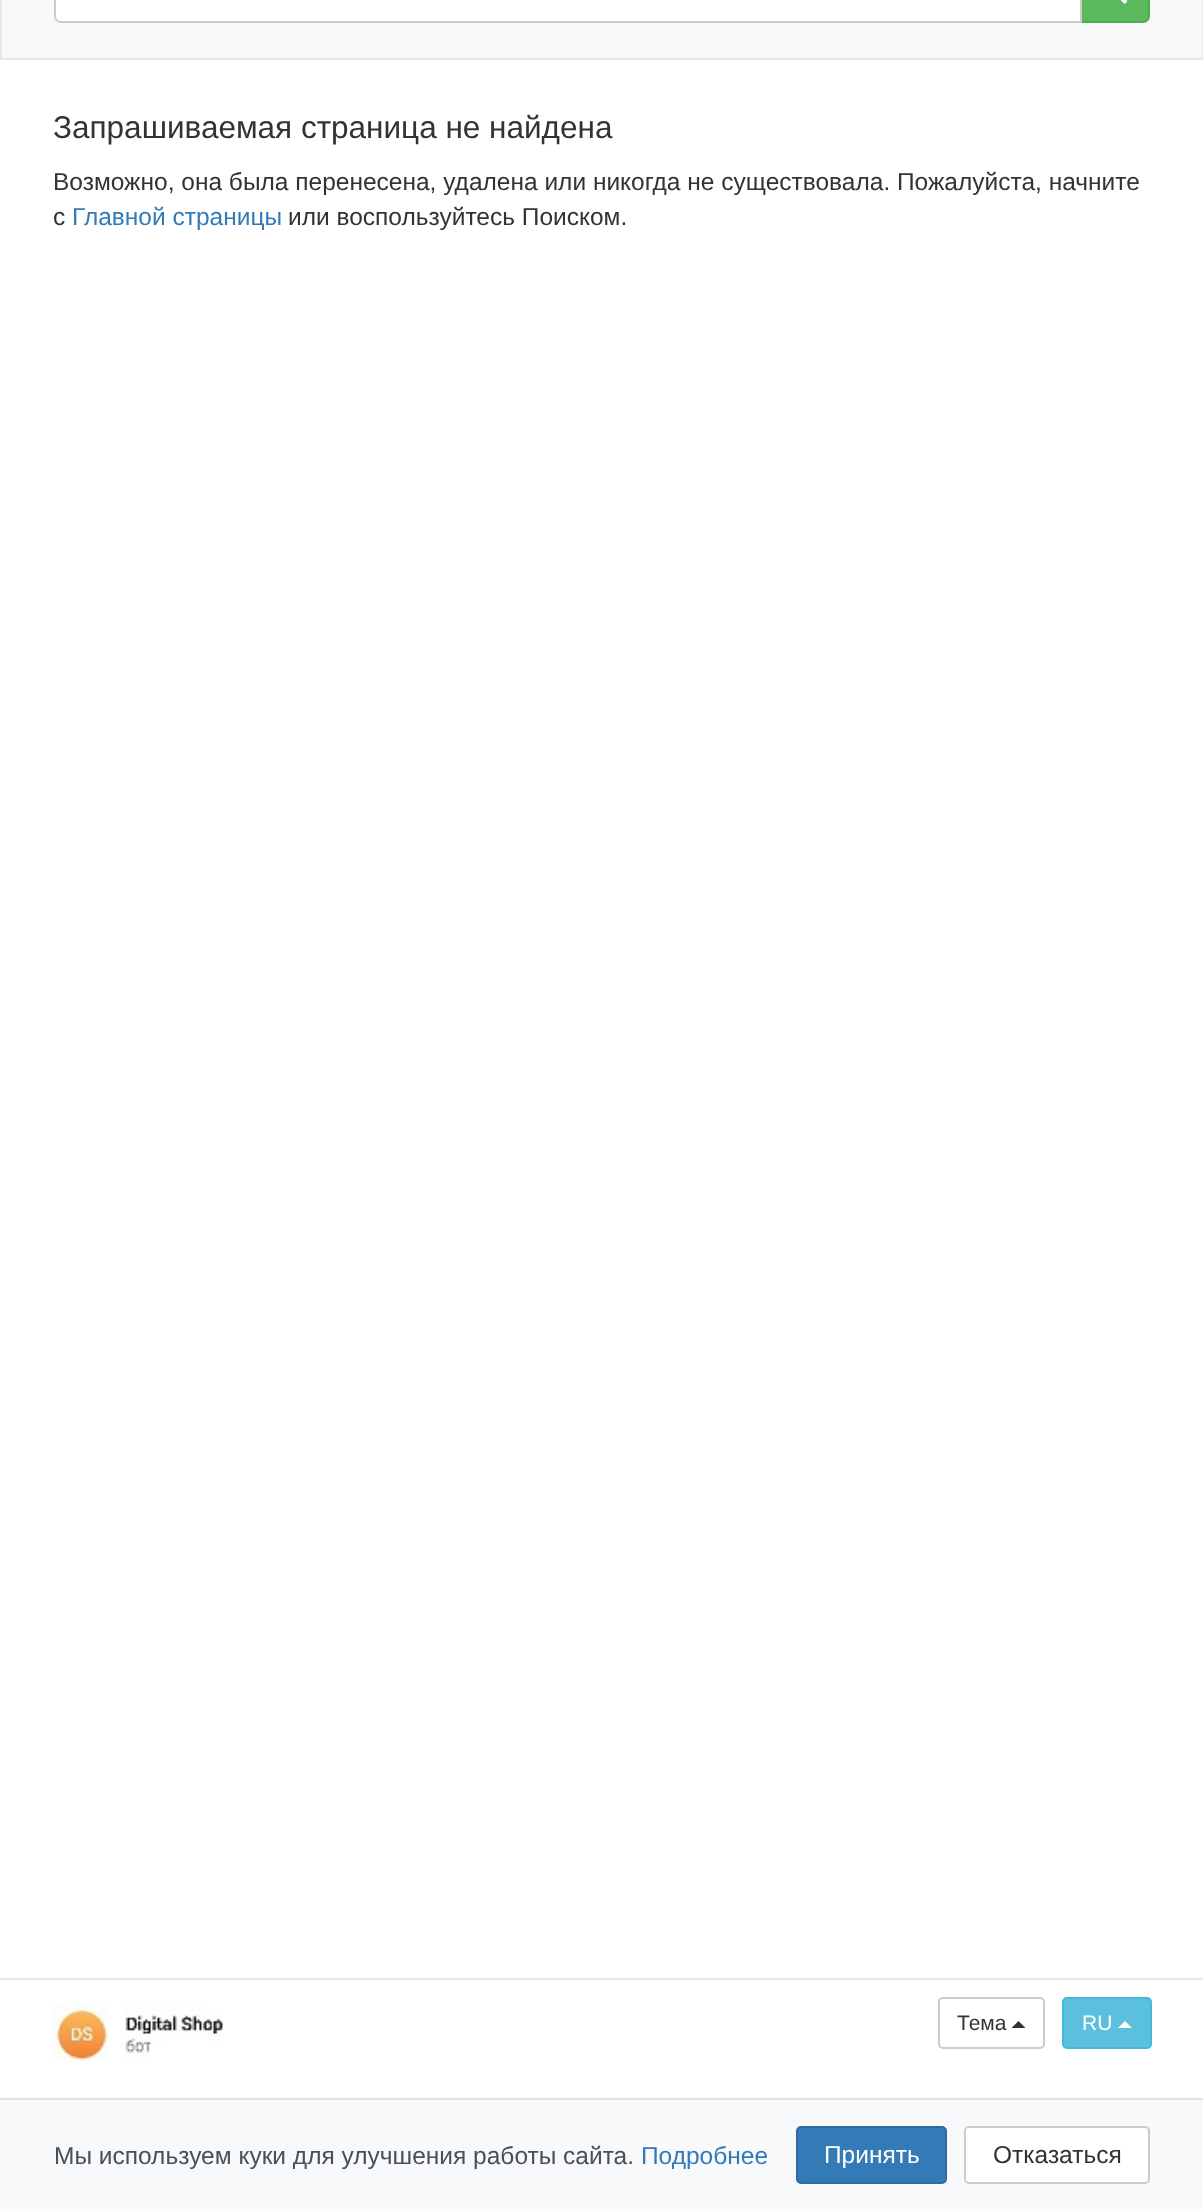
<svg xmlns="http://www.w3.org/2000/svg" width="1203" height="2209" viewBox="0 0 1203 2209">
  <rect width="100%" height="100%" fill="#ffffff"/>
  <rect x="1" y="-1" width="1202" height="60" fill="#f8f8f8" stroke="#e7e7e7" stroke-width="2"/>
  <path d="M1081-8H1143C1146.5-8 1149-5.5 1149-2V16C1149 19.5 1146.5 22 1143 22H1081Z" fill="#5cb85c" stroke="#4cae4c" stroke-width="2"/>
  <path d="M61-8H1081V22H61C57.5 22 55 19.5 55 16V-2C55-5.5 57.5-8 61-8Z" fill="#ffffff" stroke="#cccccc" stroke-width="2"/>
  <image x="1120" y="0" width="8" height="4" href="img1.png"/>
  <text x="53" y="138" font-family="Liberation Sans" font-size="31.5" fill="#333333">Запрашиваемая страница не найдена</text>
  <text x="53" y="190" font-family="Liberation Sans" font-size="24.5" fill="#333333">Возможно, она была перенесена, удалена или никогда не существовала. Пожалуйста, начните</text>
  <text x="53" y="225" font-family="Liberation Sans" font-size="24.5" fill="#333333">с</text>
  <text x="72" y="225" font-family="Liberation Sans" font-size="24.5" fill="#337ab7">Главной страницы</text>
  <text x="288" y="225" font-family="Liberation Sans" font-size="24.5" fill="#333333">или воспользуйтесь Поиском.</text>
  <rect x="0" y="1978" width="1203" height="2" fill="#e6e6e6"/>
  <image x="52" y="2005" width="171" height="57" href="img2.png"/>
  <rect x="939" y="1998" width="105" height="50" rx="4" fill="none" stroke="#cccccc" stroke-width="2"/>
  <text x="957" y="2030" font-family="Liberation Sans" font-size="21" fill="#333333">Тема</text>
  <path d="M1025.5 2028H1011.5L1018.5 2021Z" fill="#333333"/>
  <rect x="1063" y="1998" width="88" height="50" rx="4" fill="#5bc0de" stroke="#46b8da" stroke-width="2"/>
  <text x="1082" y="2030" font-family="Liberation Sans" font-size="21" fill="#ffffff">RU</text>
  <path d="M1132 2028H1118L1125 2021Z" fill="#ffffff"/>
  <rect x="0" y="2100" width="1203" height="109" fill="#f8f9fa"/>
  <rect x="0" y="2098" width="1203" height="2" fill="#dee2e6"/>
  <text x="54" y="2164" font-family="Liberation Sans" font-size="24.5" fill="#495057">Мы используем куки для улучшения работы сайта.</text>
  <text x="641" y="2164" font-family="Liberation Sans" font-size="24.5" fill="#337ab7">Подробнее</text>
  <rect x="797" y="2127" width="149" height="56" rx="4" fill="#337ab7" stroke="#2e6da4" stroke-width="2"/>
  <text x="824" y="2163" font-family="Liberation Sans" font-size="24.5" fill="#ffffff">Принять</text>
  <rect x="965" y="2127" width="184" height="56" rx="4" fill="#ffffff" stroke="#cccccc" stroke-width="2"/>
  <text x="993" y="2163" font-family="Liberation Sans" font-size="24.5" fill="#333333">Отказаться</text>
</svg>
